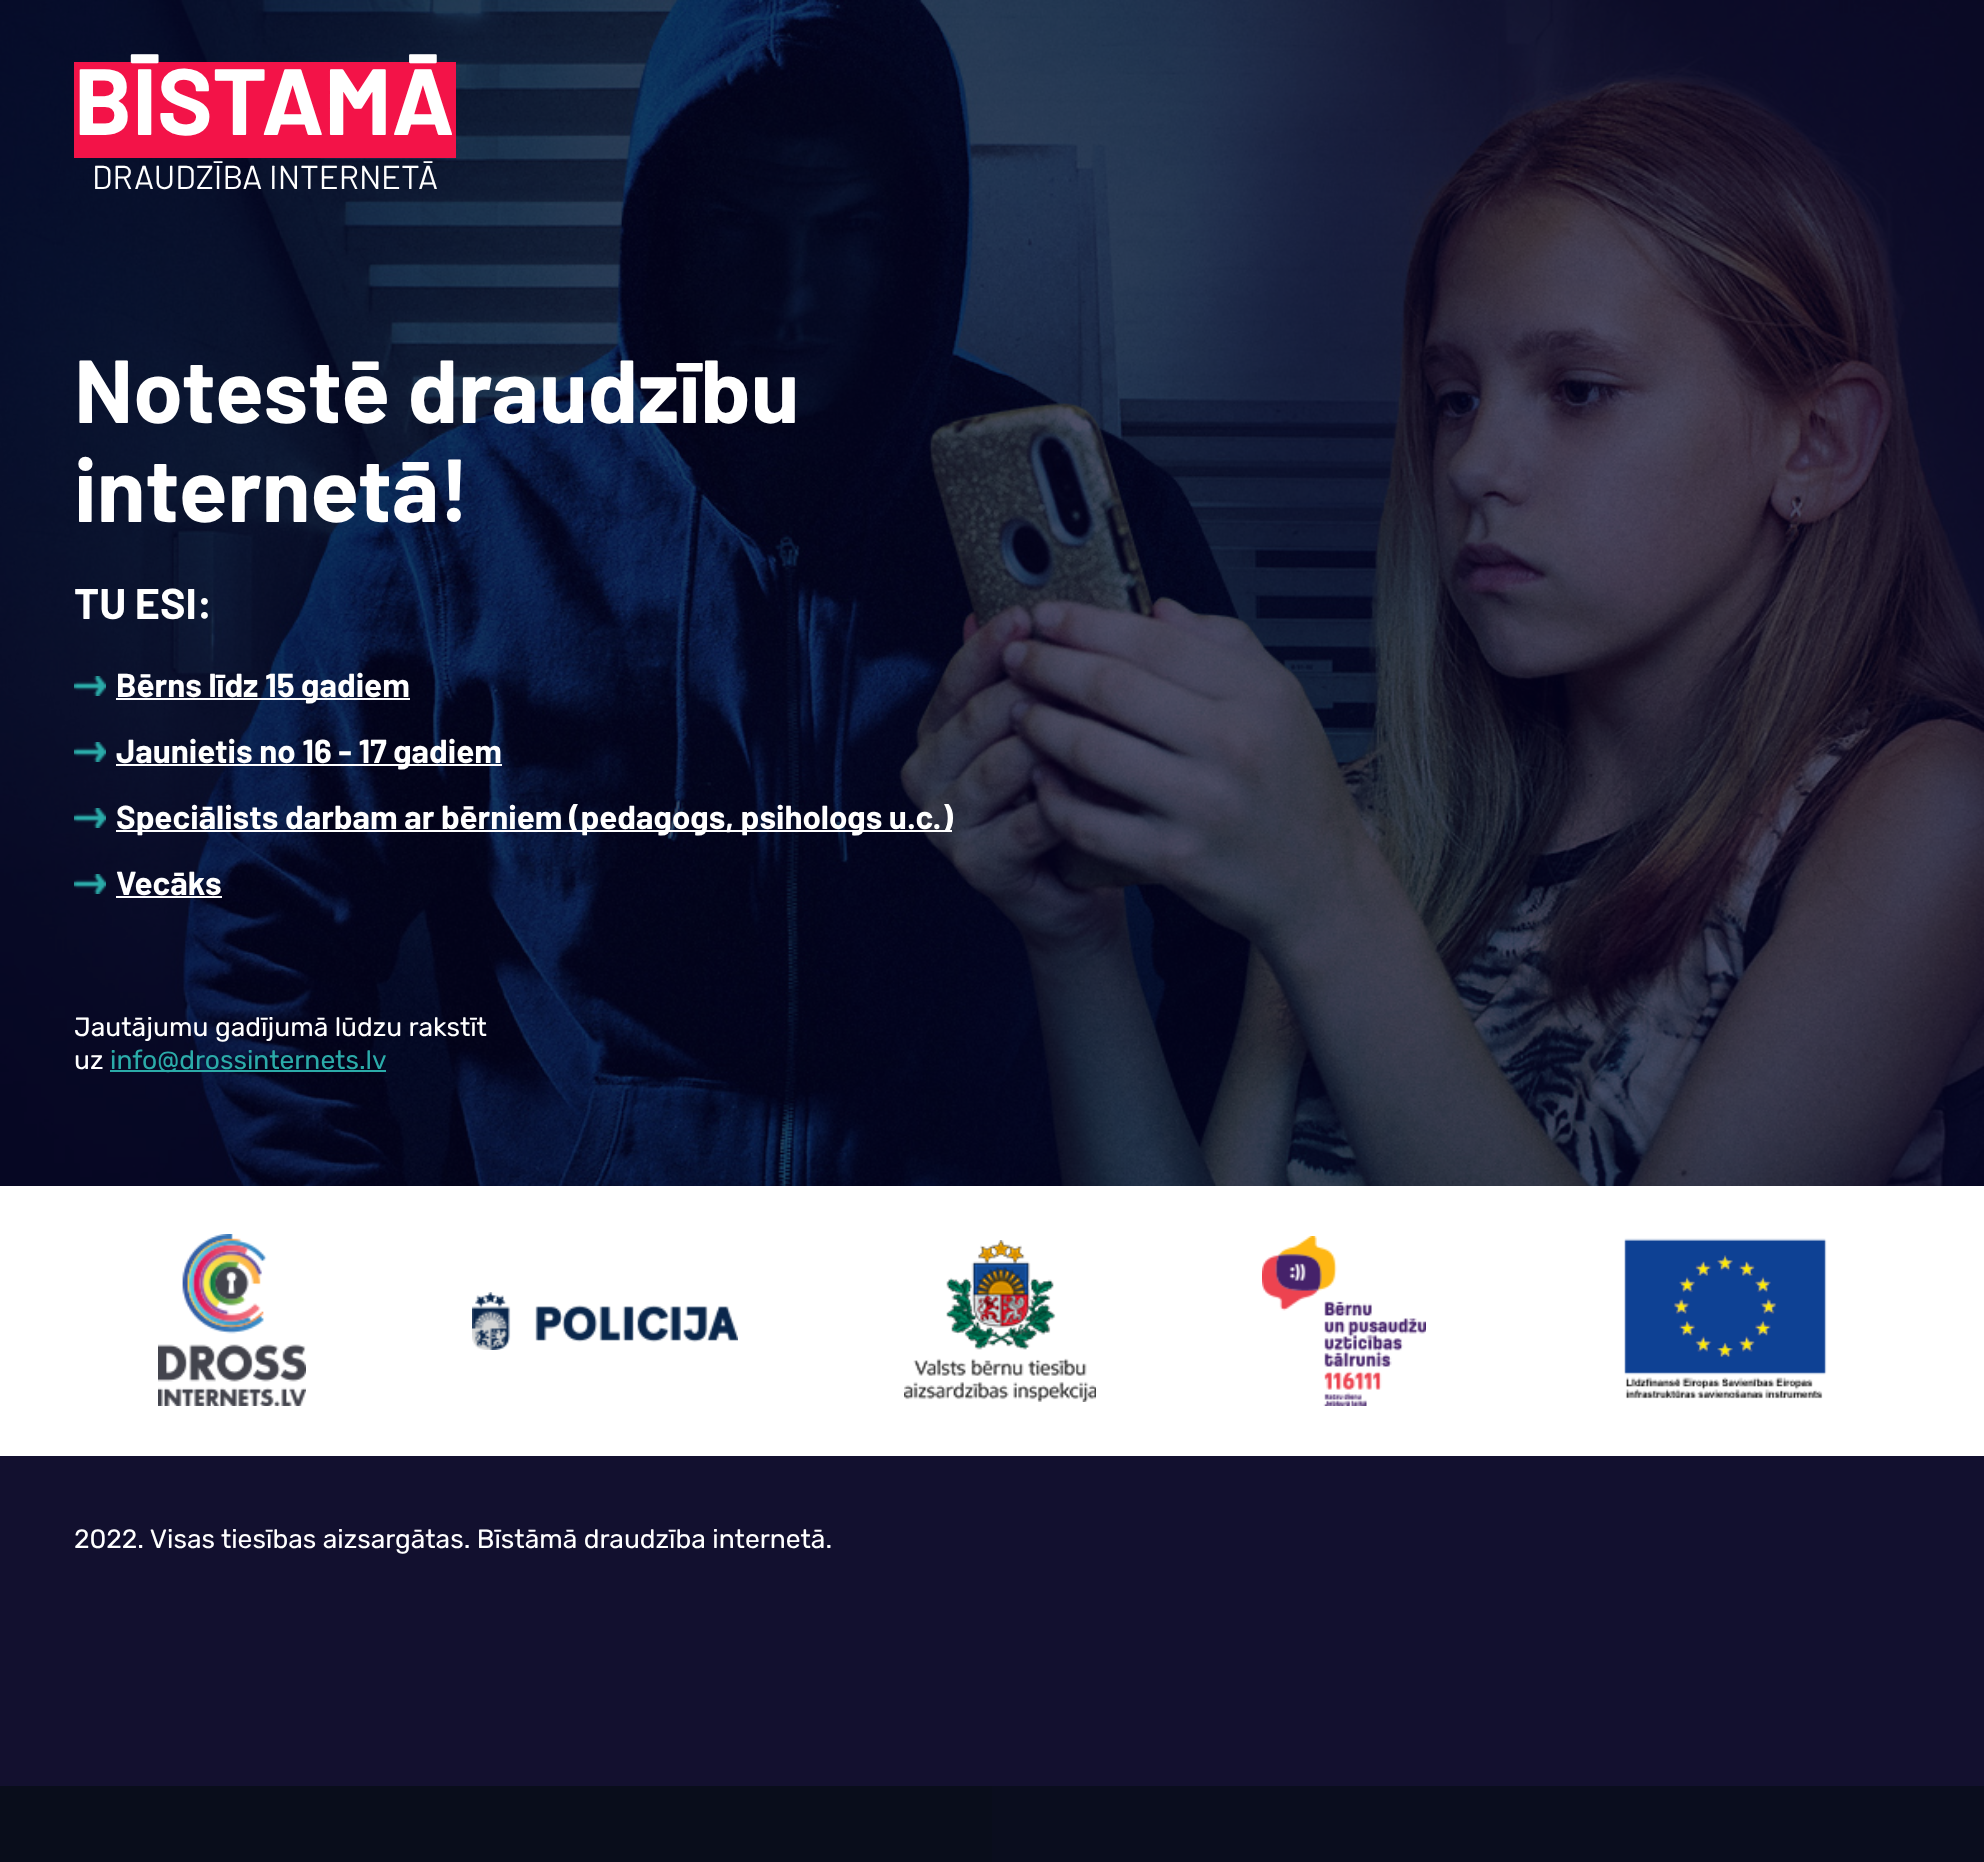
<svg xmlns="http://www.w3.org/2000/svg" width="1984" height="1862" viewBox="0 0 1984 1862">
  <rect width="100%" height="100%" fill="#090d1b"/>
  <image x="0" y="0" width="1984" height="1786" href="img1.png"/>
  <rect x="992" y="1786" width="992" height="76" fill="#0a0d1e"/>
  <rect x="74" y="62" width="382" height="96" fill="#f31348"/>
  <text x="74" y="135" font-family="Barlow" font-size="94" font-weight="bold" fill="#ffffff">BĪSTAMĀ</text>
  <text x="92" y="189" font-family="Barlow" font-size="33.1" fill="#ffffff">DRAUDZĪBA INTERNETĀ</text>
  <text x="74" y="423" font-family="Barlow" font-size="89.25" font-weight="bold" fill="#ffffff">Notestē draudzību</text>
  <text x="74" y="522" font-family="Barlow" font-size="89.25" font-weight="bold" fill="#ffffff">internetā!</text>
  <text x="74" y="619" font-family="Barlow" font-size="43" font-weight="bold" fill="#ffffff">TU ESI:</text>
  <image x="74" y="676" width="32" height="20" href="img2.png"/>
  <rect x="116" y="698" width="294" height="2" fill="#ffffff"/>
  <text x="116" y="697" font-family="Barlow" font-size="33.1" font-weight="bold" fill="#ffffff">Bērns līdz 15 gadiem</text>
  <image x="74" y="742" width="32" height="20" href="img3.png"/>
  <rect x="116" y="764" width="386" height="2" fill="#ffffff"/>
  <text x="116" y="763" font-family="Barlow" font-size="33.1" font-weight="bold" fill="#ffffff">Jaunietis no 16 - 17 gadiem</text>
  <image x="74" y="808" width="32" height="20" href="img4.png"/>
  <rect x="116" y="830" width="836" height="2" fill="#ffffff"/>
  <text x="116" y="829" font-family="Barlow" font-size="33.1" font-weight="bold" fill="#ffffff">Speciālists darbam ar bērniem (pedagogs, psihologs u.c.)</text>
  <image x="74" y="874" width="32" height="20" href="img5.png"/>
  <text x="116" y="895" font-family="Barlow" font-size="33.1" font-weight="bold" fill="#ffffff">Vecāks</text>
  <rect x="116" y="896" width="106" height="2" fill="#ffffff"/>
  <text x="74" y="1036" font-family="Rubik" font-size="26.45" fill="#ffffff">Jautājumu gadījumā lūdzu rakstīt</text>
  <text x="74" y="1069" font-family="Rubik" font-size="26.45" fill="#ffffff">uz</text>
  <rect x="110" y="1070" width="276" height="2" fill="#2baba9"/>
  <text x="110" y="1069" font-family="Rubik" font-size="26.45" fill="#2baba9">info@drossinternets.lv</text>
  <rect x="0" y="1186" width="1984" height="270" fill="#ffffff"/>
  <image x="158" y="1234" width="148" height="172" href="img6.png"/>
  <image x="472" y="1292" width="266" height="58" href="img7.png"/>
  <image x="904" y="1240" width="192" height="162" href="img8.png"/>
  <image x="1262" y="1236" width="164" height="170" href="img9.png"/>
  <image x="1624" y="1238" width="203" height="161" href="img10.png"/>
  <rect x="0" y="1456" width="1984" height="264" fill="#12102f"/>
  <text x="74" y="1548" font-family="Rubik" font-size="26.45" fill="#ffffff">2022. Visas tiesības aizsargātas. Bīstāmā draudzība internetā.</text>
</svg>
